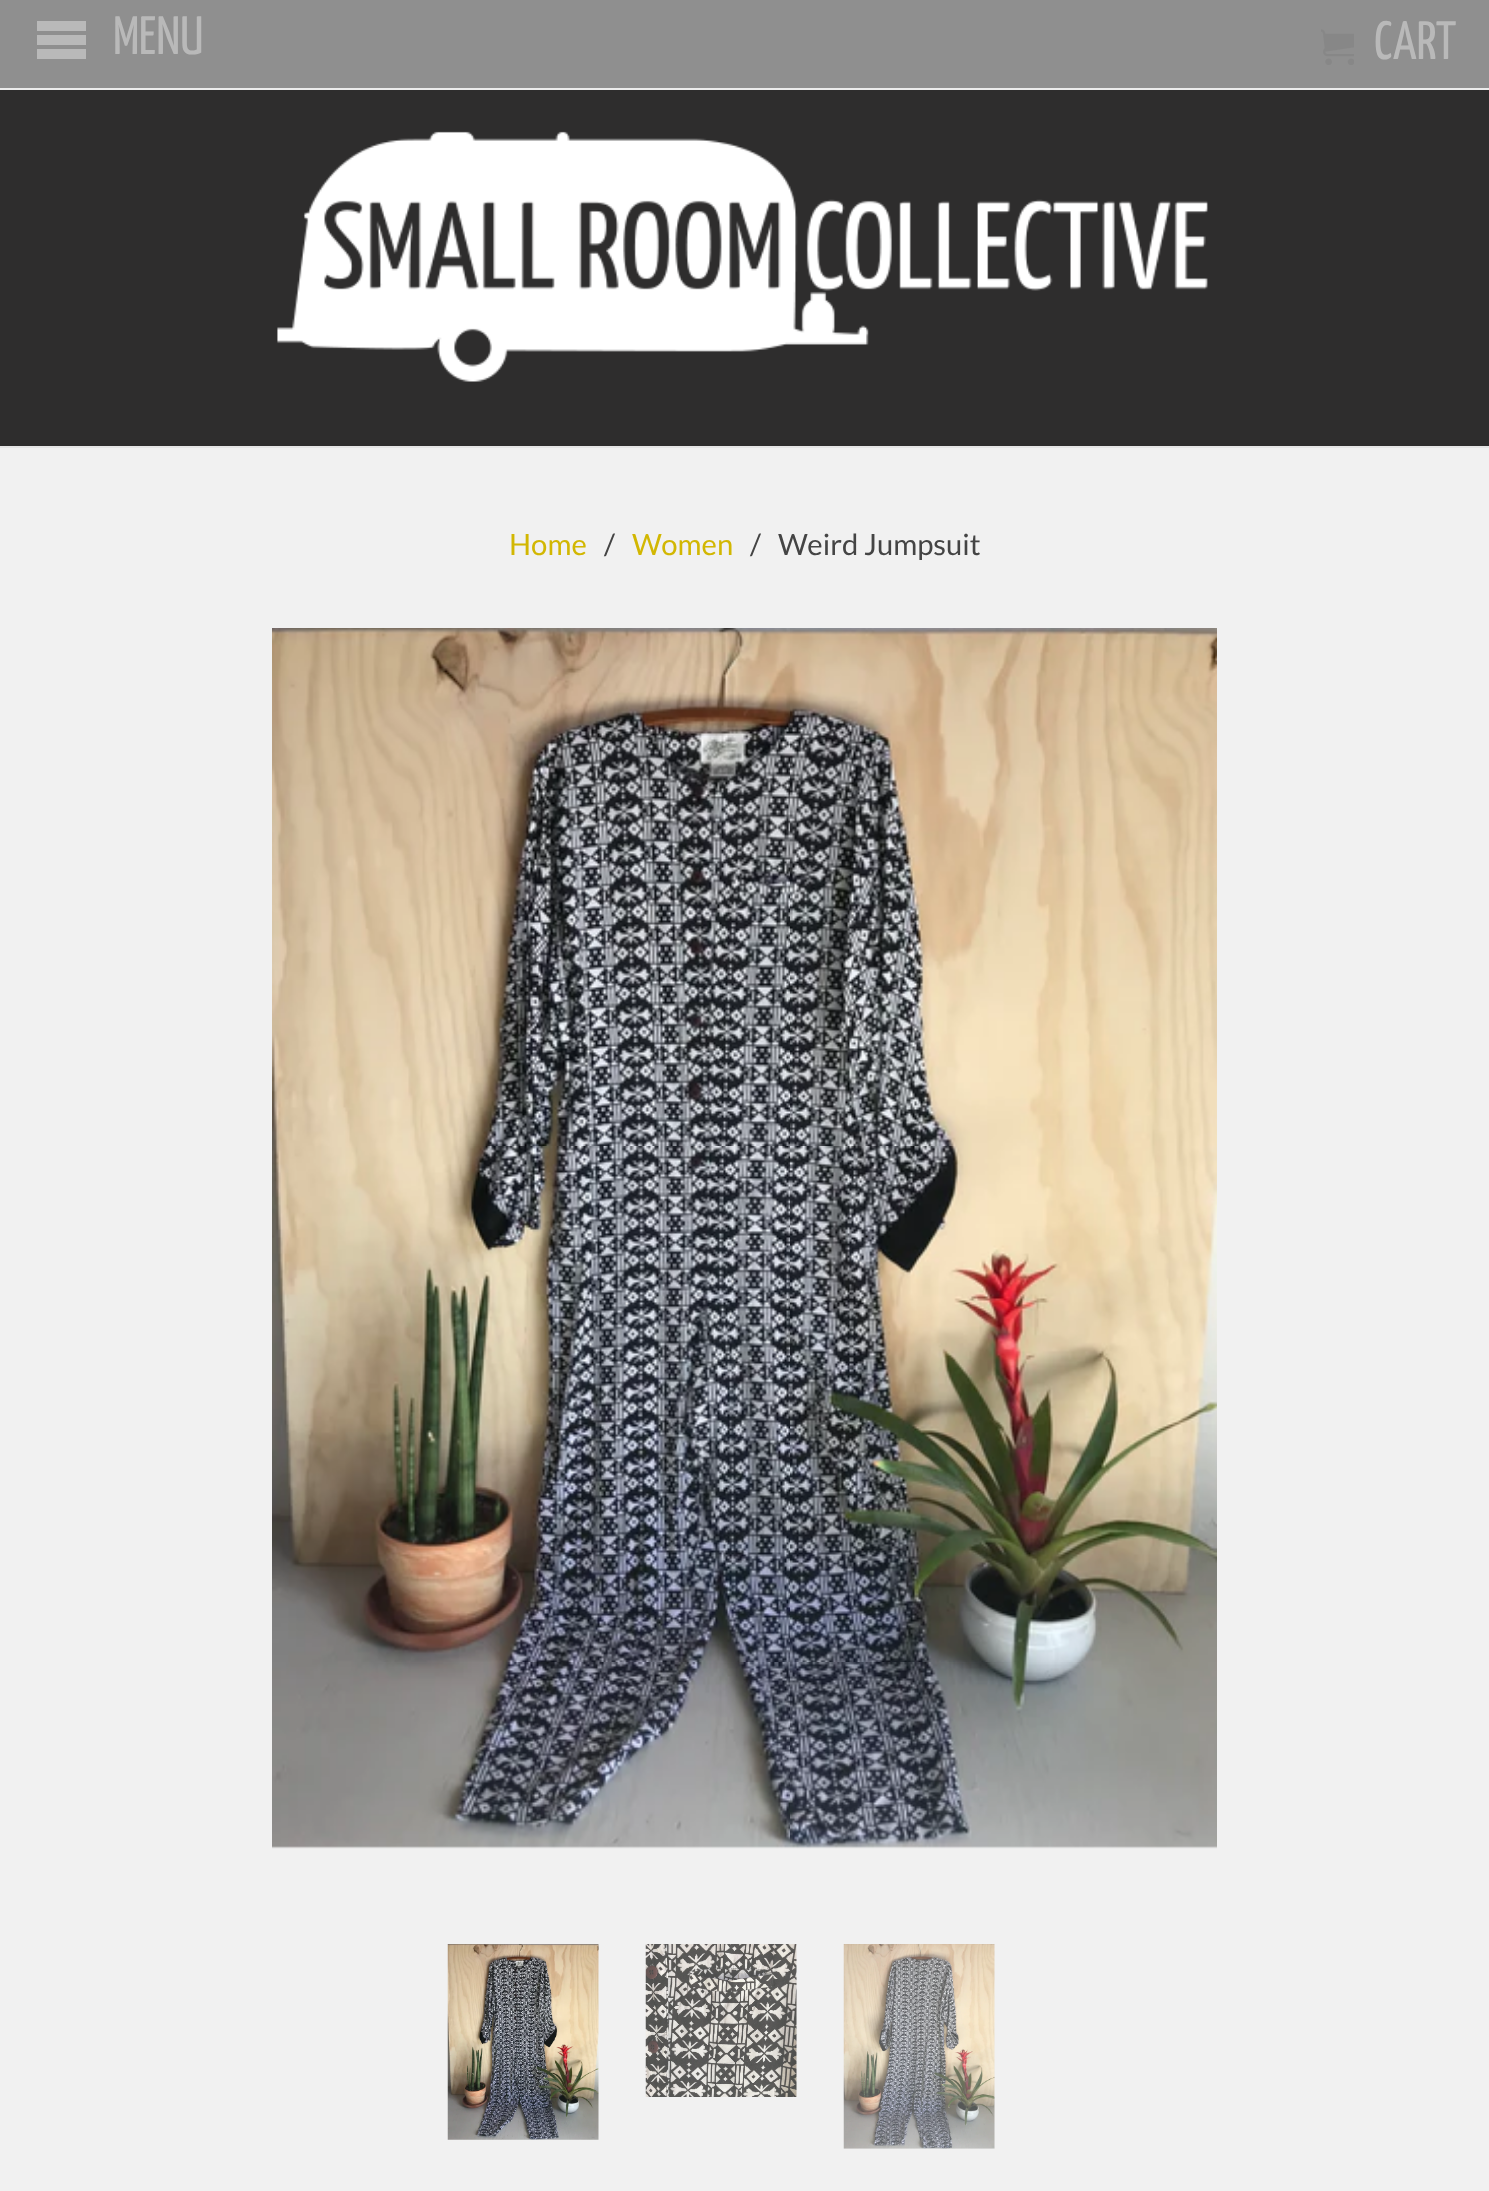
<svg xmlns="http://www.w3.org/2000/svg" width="1489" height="2191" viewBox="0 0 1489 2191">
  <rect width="100%" height="100%" fill="#f1f1f1"/>
  <rect x="0" y="0" width="1489" height="88" fill="#8f8f8f"/>
  <rect x="0" y="88" width="1489" height="2" fill="#ebebeb"/>
  <path d="M37 21V31H86V21ZM37 35V45H86V35ZM37 49V59H86V49Z" fill="#b9b9b9"/>
  <text x="113" y="54" font-family="Yanone Kaffeesatz" font-size="54" fill="#b9b9b9">MENU</text>
  <image x="1321" y="29" width="33" height="36" href="img1.png"/>
  <text x="1374" y="59" font-family="Yanone Kaffeesatz" font-size="54" fill="#b9b9b9">CART</text>
  <rect x="0" y="90" width="1489" height="356" fill="#2e2d2d"/>
  <rect x="0" y="446" width="1489" height="2" fill="#e5e5e5"/>
  <image x="277" y="131" width="931" height="251" href="img2.png"/>
  <text x="509" y="555" font-family="Lato" font-size="29.25" fill="#d2b702">Home</text>
  <text x="604" y="555" font-family="Lato" font-size="29.25" fill="#444444">/</text>
  <text x="632" y="555" font-family="Lato" font-size="29.25" fill="#d2b702">Women</text>
  <text x="750" y="555" font-family="Lato" font-size="29.25" fill="#444444">/</text>
  <text x="778" y="555" font-family="Lato" font-size="29.25" fill="#444444">Weird Jumpsuit</text>
  <image x="272" y="628" width="945" height="1221" href="img3.png"/>
  <image x="447" y="1944" width="152" height="196" href="img4.png"/>
  <image x="645" y="1944" width="152" height="153" href="img5.png"/>
  <image x="843" y="1944" width="152" height="205" href="img6.png"/>
</svg>
